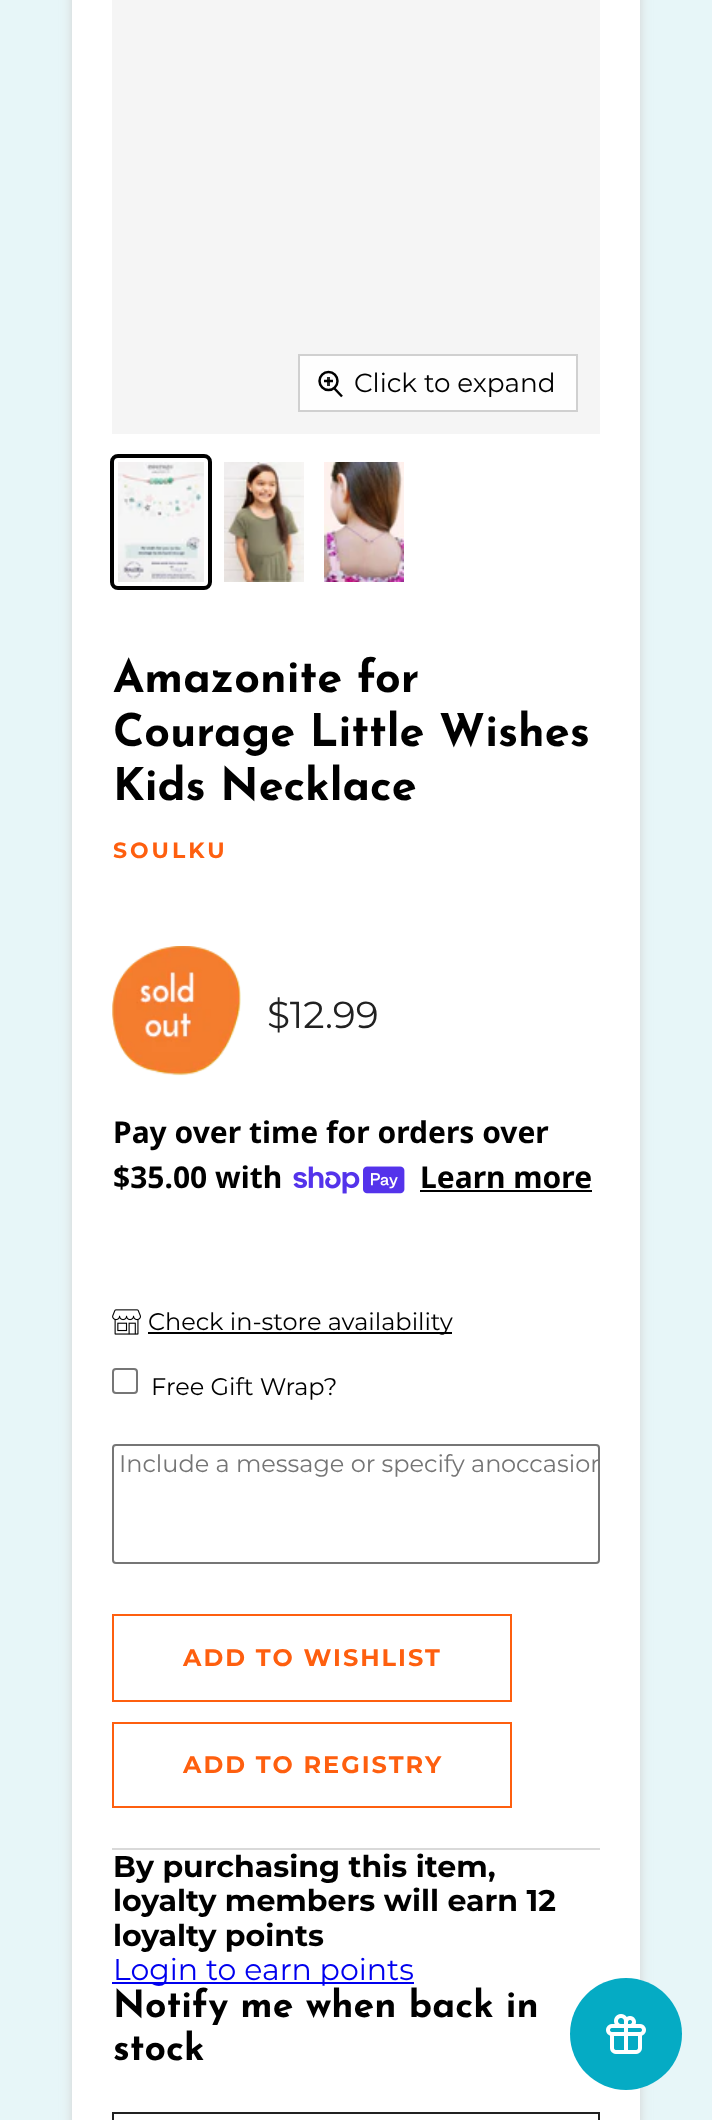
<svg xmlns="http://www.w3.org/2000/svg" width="712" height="2120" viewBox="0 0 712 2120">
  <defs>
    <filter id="blur1" x="-50%" y="-200%" width="200%" height="500%"><feGaussianBlur stdDeviation="6"/></filter>
    <clipPath id="clip1"><rect x="114" y="1446" width="484" height="116"/></clipPath>
  </defs>
  <rect width="100%" height="100%" fill="#e7f6f8"/>
  <rect x="72" y="-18" width="568" height="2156" fill="#d3d3d3" filter="url(#blur1)"/>
  <rect x="72" y="0" width="568" height="2120" fill="#ffffff"/>
  <rect x="112" y="0" width="488" height="434" fill="#f5f5f5"/>
  <rect x="299" y="355" width="278" height="56" fill="none" stroke="#d0d0d0" stroke-width="2"/>
  <rect x="300" y="356" width="276" height="54" fill="#fefefe"/>
  <path d="M333.5 387.5L342 396.5" fill="none" stroke="#000000" stroke-width="2.5"/>
  <circle cx="328.5" cy="381" r="9" fill="none" stroke="#000000" stroke-width="2.5"/>
  <rect x="327" y="377" width="3" height="9" fill="#2a2a2a"/>
  <path d="M324 381H333" fill="none" stroke="#000000" stroke-width="2.5" stroke-linejoin="round"/>
  <text x="354" y="392" font-family="Montserrat" font-size="26.25" font-weight="100" fill="#000000">Click to expand</text>
  <rect x="112" y="456" width="98" height="132" rx="6" fill="none" stroke="#000000" stroke-width="4"/>
  <image x="118" y="462" width="86" height="120" href="img1.png"/>
  <image x="224" y="462" width="80" height="120" href="img2.png"/>
  <image x="324" y="462" width="80" height="120" href="img3.png"/>
  <text x="113" y="692" font-family="Josefin Sans" font-size="45" font-weight="bold" fill="#000000">Amazonite for</text>
  <text x="113" y="746" font-family="Josefin Sans" font-size="45" font-weight="bold" fill="#000000">Courage Little Wishes</text>
  <text x="113" y="800" font-family="Josefin Sans" font-size="45" font-weight="bold" fill="#000000">Kids Necklace</text>
  <text x="113" y="858" font-family="Montserrat" font-size="22" font-weight="bold" letter-spacing="3" fill="#fe5f0f">SOULKU</text>
  <image x="112" y="946" width="129" height="130" href="img4.png"/>
  <text x="267" y="1028" font-family="Montserrat" font-size="37.5" font-weight="100" fill="#212121">$12.99</text>
  <text x="113" y="1143" font-family="Noto Sans" font-size="30" font-weight="bold" fill="#000000">Pay over time for orders over</text>
  <text x="113" y="1188" font-family="Noto Sans" font-size="30" font-weight="bold" fill="#000000">$35.00 with</text>
  <image x="293" y="1166" width="112" height="28" href="img5.png"/>
  <text x="420" y="1188" font-family="Noto Sans" font-size="30" font-weight="bold" fill="#000000">Learn more</text>
  <rect x="420" y="1190" width="172" height="2" fill="#000000"/>
  <image x="112" y="1309" width="29" height="26" href="img6.png"/>
  <rect x="148" y="1332" width="304" height="2" fill="#000000"/>
  <text x="148" y="1330" font-family="Montserrat" font-size="24" font-weight="100" fill="#000000">Check in-store availability</text>
  <rect x="113" y="1369" width="24" height="24" rx="3" fill="none" stroke="#767676" stroke-width="2"/>
  <text x="151" y="1395" font-family="Montserrat" font-size="24" font-weight="100" fill="#000000">Free Gift Wrap?</text>
  <rect x="113" y="1445" width="486" height="118" rx="3" fill="none" stroke="#767676" stroke-width="2"/>
  <text x="119" y="1472" font-family="Montserrat" font-size="24" font-weight="100" fill="#757575">Include a message or specify an</text>
  <g clip-path="url(#clip1)">
    <text x="501" y="1472" font-family="Montserrat" font-size="24" font-weight="100" fill="#757575">occasion</text>
  </g>
  <rect x="113" y="1615" width="398" height="86" fill="none" stroke="#fe5f0f" stroke-width="2"/>
  <text x="183" y="1666" font-family="Montserrat" font-size="24" font-weight="bold" letter-spacing="2" fill="#fe5f0f">ADD TO WISHLIST</text>
  <rect x="113" y="1723" width="398" height="84" fill="none" stroke="#fe5f0f" stroke-width="2"/>
  <text x="183" y="1773" font-family="Montserrat" font-size="24" font-weight="bold" letter-spacing="2" fill="#fe5f0f">ADD TO REGISTRY</text>
  <text x="113" y="1877" font-family="Montserrat" font-size="30" font-weight="bold" fill="#000000">By purchasing this item,</text>
  <text x="113" y="1911" font-family="Montserrat" font-size="30" font-weight="bold" fill="#000000">loyalty members will earn 12</text>
  <text x="113" y="1946" font-family="Montserrat" font-size="30" font-weight="bold" fill="#000000">loyalty points</text>
  <rect x="112" y="1982" width="302" height="2" fill="#0000ee"/>
  <text x="113" y="1980" font-family="Montserrat" font-size="30" font-weight="100" fill="#0000ee">Login to earn points</text>
  <rect x="112" y="1848" width="488" height="2" fill="#d9d9d9"/>
  <text x="113" y="2017" font-family="Josefin Sans" font-size="37.5" font-weight="bold" fill="#000000">Notify me when back in</text>
  <text x="113" y="2060" font-family="Josefin Sans" font-size="37.5" font-weight="bold" fill="#000000">stock</text>
  <rect x="113" y="2113" width="486" height="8" fill="none" stroke="#212121" stroke-width="2"/>
  <circle cx="626" cy="2034" r="56" fill="#05abc4"/>
  <image x="606" y="2014" width="40" height="40" href="img7.png"/>
</svg>
